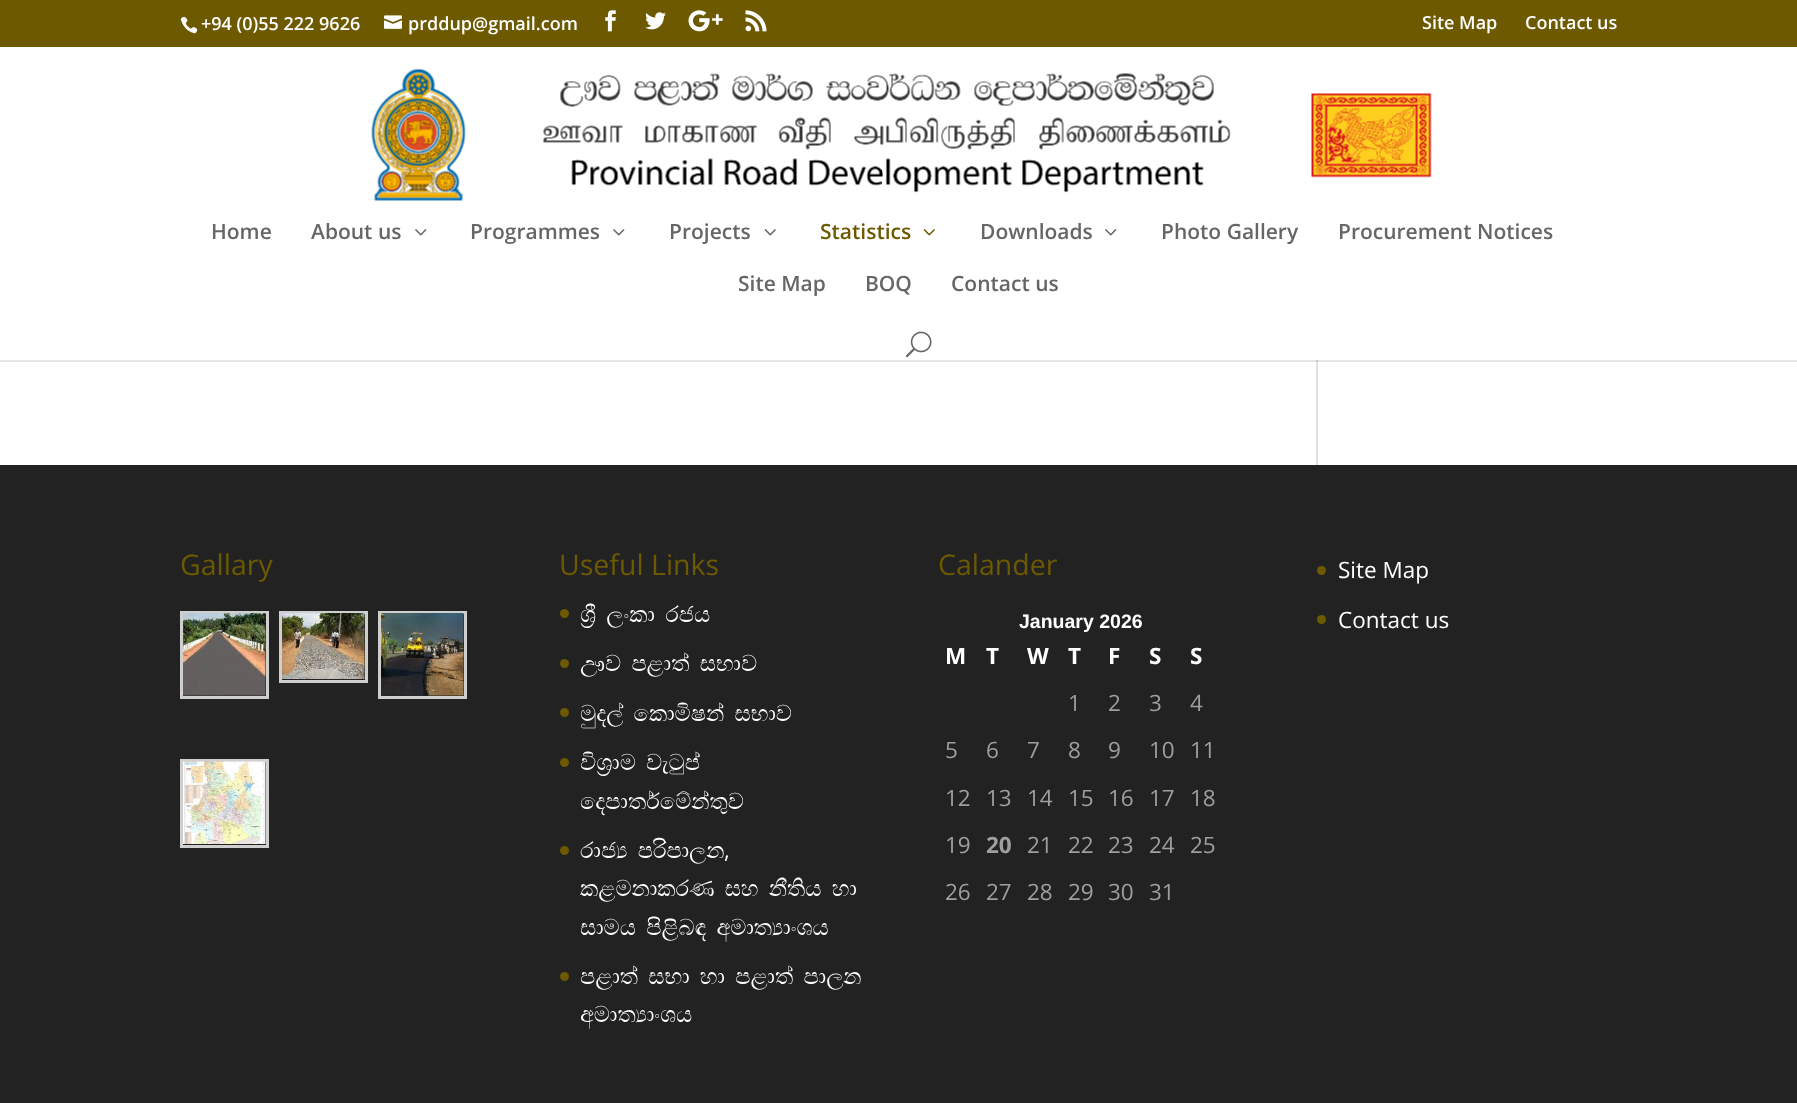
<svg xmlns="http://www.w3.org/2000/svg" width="1797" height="1103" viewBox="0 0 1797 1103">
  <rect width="100%" height="100%" fill="#ffffff"/>
  <rect x="0" y="0" width="1797" height="47" fill="#6d5900"/>
  <image x="180" y="16" width="18" height="18" href="img1.png"/>
  <text x="201" y="30" font-family="Open Sans" font-size="18" font-weight="600" fill="#ffffff">+94 (0)55 222 9626</text>
  <image x="384" y="15" width="18" height="14" href="img2.png"/>
  <text x="408" y="30" font-family="Open Sans" font-size="18" font-weight="600" fill="#ffffff">prddup@gmail.com</text>
  <image x="605" y="10" width="11" height="22" href="img3.png"/>
  <image x="645" y="12" width="21" height="18" href="img4.png"/>
  <image x="688" y="10" width="35" height="22" href="img5.png"/>
  <image x="745" y="10" width="22" height="22" href="img6.png"/>
  <text x="1422" y="29" font-family="Open Sans" font-size="18" font-weight="600" fill="#ffffff">Site Map</text>
  <text x="1525" y="29" font-family="Open Sans" font-size="18" font-weight="600" fill="#ffffff">Contact us</text>
  <rect x="1316" y="360" width="2" height="105" fill="#e2e2e2"/>
  <rect x="0" y="360" width="1797" height="2" fill="#000000" fill-opacity="0.1"/>
  <image x="371" y="68" width="1061" height="133" href="img7.png"/>
  <text x="211" y="239" font-family="Open Sans" font-size="21" font-weight="600" fill="#666666">Home</text>
  <text x="311" y="239" font-family="Open Sans" font-size="21" font-weight="600" fill="#666666">About us</text>
  <image x="415" y="229" width="12" height="7" href="img8.png"/>
  <text x="470" y="239" font-family="Open Sans" font-size="21" font-weight="600" fill="#666666">Programmes</text>
  <image x="613" y="229" width="12" height="7" href="img8.png"/>
  <text x="669" y="239" font-family="Open Sans" font-size="21" font-weight="600" fill="#666666">Projects</text>
  <image x="764" y="229" width="12" height="7" href="img9.png"/>
  <text x="820" y="239" font-family="Open Sans" font-size="21" font-weight="600" fill="#6d5900">Statistics</text>
  <image x="923" y="229" width="12" height="7" href="img10.png"/>
  <text x="980" y="239" font-family="Open Sans" font-size="21" font-weight="600" fill="#666666">Downloads</text>
  <image x="1105" y="229" width="12" height="7" href="img8.png"/>
  <text x="1161" y="239" font-family="Open Sans" font-size="21" font-weight="600" fill="#666666">Photo Gallery</text>
  <text x="1338" y="239" font-family="Open Sans" font-size="21" font-weight="600" fill="#666666">Procurement Notices</text>
  <text x="738" y="291" font-family="Open Sans" font-size="21" font-weight="600" fill="#666666">Site Map</text>
  <text x="865" y="291" font-family="Open Sans" font-size="21" font-weight="600" fill="#666666">BOQ</text>
  <text x="951" y="291" font-family="Open Sans" font-size="21" font-weight="600" fill="#666666">Contact us</text>
  <image x="905" y="331" width="27" height="27" href="img11.png"/>
  <rect x="0" y="465" width="1797" height="638" fill="#222222"/>
  <text x="180" y="575" font-family="Open Sans" font-size="28.5" fill="#6d5900">Gallary</text>
  <rect x="181.5" y="612.5" width="86" height="85" fill="none" stroke="#cfcfcf" stroke-width="3"/>
  <image x="183" y="613" width="83" height="83" href="img12.png"/>
  <rect x="280.5" y="612.5" width="86" height="69" fill="none" stroke="#cfcfcf" stroke-width="3"/>
  <image x="282" y="613" width="83" height="66" href="img13.png"/>
  <rect x="379.5" y="612.5" width="86" height="85" fill="none" stroke="#cfcfcf" stroke-width="3"/>
  <image x="381" y="613" width="83" height="83" href="img14.png"/>
  <rect x="181.5" y="760.5" width="86" height="86" fill="none" stroke="#cfcfcf" stroke-width="3"/>
  <image x="183" y="761" width="83" height="83" href="img15.png"/>
  <text x="559" y="575" font-family="Open Sans" font-size="28.5" fill="#6d5900">Useful Links</text>
  <circle cx="564.5" cy="613.5" r="4.5" fill="#6d5900"/>
  <text x="580" y="622" word-spacing="-1" font-family="FreeSerif" font-size="22.5" fill="#ffffff">ශ්‍රී ලංකා රජය</text>
  <circle cx="564.5" cy="663.5" r="4.5" fill="#6d5900"/>
  <text x="580" y="671" word-spacing="-1" font-family="FreeSerif" font-size="22.5" fill="#ffffff">ඌව පළාත් සභාව</text>
  <circle cx="564.5" cy="712.5" r="4.5" fill="#6d5900"/>
  <text x="580" y="721" word-spacing="-1" font-family="FreeSerif" font-size="22.5" fill="#ffffff">මුදල් කොමිෂන් සභාව</text>
  <circle cx="564.5" cy="762.5" r="4.5" fill="#6d5900"/>
  <text x="580" y="770" word-spacing="-1" font-family="FreeSerif" font-size="22.5" fill="#ffffff">විශ්‍රාම වැටුප්</text>
  <text x="580" y="809" font-family="FreeSerif" font-size="22.5" fill="#ffffff">දෙපාර්තමේන්තුව</text>
  <circle cx="564.5" cy="850.5" r="4.5" fill="#6d5900"/>
  <text x="580" y="858" word-spacing="-1" font-family="FreeSerif" font-size="22.5" fill="#ffffff">රාජ්‍ය පරිපාලන</text>
  <text x="724" y="858" font-family="Open Sans" font-size="22.5" fill="#ffffff">,</text>
  <text x="580" y="896" word-spacing="-1" font-family="FreeSerif" font-size="22.5" fill="#ffffff">කළමනාකරණ සහ නීතිය හා</text>
  <text x="580" y="935" word-spacing="-1" font-family="FreeSerif" font-size="22.5" fill="#ffffff">සාමය පිළිබඳ අමාත්‍යාංශය</text>
  <circle cx="564.5" cy="976.5" r="4.5" fill="#6d5900"/>
  <text x="580" y="984" word-spacing="-1" font-family="FreeSerif" font-size="22.5" fill="#ffffff">පළාත් සභා හා පළාත් පාලන</text>
  <text x="580" y="1022" font-family="FreeSerif" font-size="22.5" fill="#ffffff">අමාත්‍යාංශය</text>
  <text x="938" y="575" font-family="Open Sans" font-size="28.5" fill="#6d5900">Calander</text>
  <text x="1019" y="628" font-family="Liberation Sans" font-size="19.5" font-weight="bold" fill="#ffffff">January 2026</text>
  <text x="945" y="664" font-family="Open Sans" font-size="22.5" font-weight="bold" fill="#ffffff">M</text>
  <text x="986" y="664" font-family="Open Sans" font-size="22.5" font-weight="bold" fill="#ffffff">T</text>
  <text x="1027" y="664" font-family="Open Sans" font-size="22.5" font-weight="bold" fill="#ffffff">W</text>
  <text x="1068" y="664" font-family="Open Sans" font-size="22.5" font-weight="bold" fill="#ffffff">T</text>
  <text x="1108" y="664" font-family="Open Sans" font-size="22.5" font-weight="bold" fill="#ffffff">F</text>
  <text x="1149" y="664" font-family="Open Sans" font-size="22.5" font-weight="bold" fill="#ffffff">S</text>
  <text x="1190" y="664" font-family="Open Sans" font-size="22.5" font-weight="bold" fill="#ffffff">S</text>
  <text x="1068" y="711" font-family="Open Sans" font-size="22.5" fill="#9f9f9f">1</text>
  <text x="1108" y="711" font-family="Open Sans" font-size="22.5" fill="#9f9f9f">2</text>
  <text x="1149" y="711" font-family="Open Sans" font-size="22.5" fill="#9f9f9f">3</text>
  <text x="1190" y="711" font-family="Open Sans" font-size="22.5" fill="#9f9f9f">4</text>
  <text x="945" y="758" font-family="Open Sans" font-size="22.5" fill="#9f9f9f">5</text>
  <text x="986" y="758" font-family="Open Sans" font-size="22.5" fill="#9f9f9f">6</text>
  <text x="1027" y="758" font-family="Open Sans" font-size="22.5" fill="#9f9f9f">7</text>
  <text x="1068" y="758" font-family="Open Sans" font-size="22.5" fill="#9f9f9f">8</text>
  <text x="1108" y="758" font-family="Open Sans" font-size="22.5" fill="#9f9f9f">9</text>
  <text x="1149" y="758" font-family="Open Sans" font-size="22.5" fill="#9f9f9f">10</text>
  <text x="1190" y="758" font-family="Open Sans" font-size="22.5" fill="#9f9f9f">11</text>
  <text x="945" y="806" font-family="Open Sans" font-size="22.5" fill="#9f9f9f">12</text>
  <text x="986" y="806" font-family="Open Sans" font-size="22.5" fill="#9f9f9f">13</text>
  <text x="1027" y="806" font-family="Open Sans" font-size="22.5" fill="#9f9f9f">14</text>
  <text x="1068" y="806" font-family="Open Sans" font-size="22.5" fill="#9f9f9f">15</text>
  <text x="1108" y="806" font-family="Open Sans" font-size="22.5" fill="#9f9f9f">16</text>
  <text x="1149" y="806" font-family="Open Sans" font-size="22.5" fill="#9f9f9f">17</text>
  <text x="1190" y="806" font-family="Open Sans" font-size="22.5" fill="#9f9f9f">18</text>
  <text x="945" y="853" font-family="Open Sans" font-size="22.5" fill="#9f9f9f">19</text>
  <text x="986" y="853" font-family="Open Sans" font-size="22.5" font-weight="bold" fill="#9f9f9f">20</text>
  <text x="1027" y="853" font-family="Open Sans" font-size="22.5" fill="#9f9f9f">21</text>
  <text x="1068" y="853" font-family="Open Sans" font-size="22.5" fill="#9f9f9f">22</text>
  <text x="1108" y="853" font-family="Open Sans" font-size="22.5" fill="#9f9f9f">23</text>
  <text x="1149" y="853" font-family="Open Sans" font-size="22.5" fill="#9f9f9f">24</text>
  <text x="1190" y="853" font-family="Open Sans" font-size="22.5" fill="#9f9f9f">25</text>
  <text x="945" y="900" font-family="Open Sans" font-size="22.5" fill="#9f9f9f">26</text>
  <text x="986" y="900" font-family="Open Sans" font-size="22.5" fill="#9f9f9f">27</text>
  <text x="1027" y="900" font-family="Open Sans" font-size="22.5" fill="#9f9f9f">28</text>
  <text x="1068" y="900" font-family="Open Sans" font-size="22.5" fill="#9f9f9f">29</text>
  <text x="1108" y="900" font-family="Open Sans" font-size="22.5" fill="#9f9f9f">30</text>
  <text x="1149" y="900" font-family="Open Sans" font-size="22.5" fill="#9f9f9f">31</text>
  <circle cx="1321.5" cy="570.5" r="4.5" fill="#6d5900"/>
  <text x="1338" y="578" font-family="Open Sans" font-size="22.5" fill="#ffffff">Site Map</text>
  <circle cx="1321.5" cy="619.5" r="4.5" fill="#6d5900"/>
  <text x="1338" y="628" font-family="Open Sans" font-size="22.5" fill="#ffffff">Contact us</text>
</svg>
